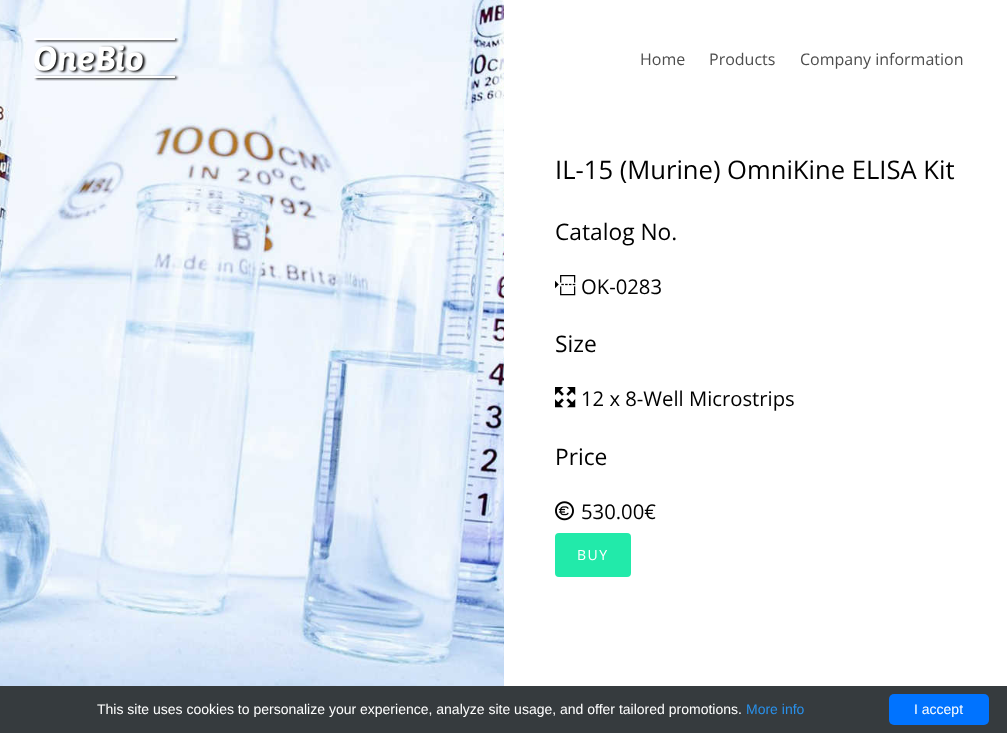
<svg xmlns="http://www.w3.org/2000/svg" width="1007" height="733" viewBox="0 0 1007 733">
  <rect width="100%" height="100%" fill="#ffffff"/>
  <image x="0" y="0" width="504" height="686" href="img2.png"/>
  <image x="34" y="38" width="145" height="43" href="img1.png"/>
  <text x="640" y="65" font-family="Open Sans" font-size="16" fill="#4d4d4d">Home</text>
  <text x="709" y="65" font-family="Open Sans" font-size="16" fill="#4d4d4d">Products</text>
  <text x="800" y="65" font-family="Open Sans" font-size="16" fill="#4d4d4d">Company information</text>
  <text x="555" y="179" font-family="Open Sans" font-size="25.6" fill="#000000">IL-15 (Murine) OmniKine ELISA Kit</text>
  <text x="555" y="240" font-family="Open Sans" font-size="22.75" fill="#000000">Catalog No.</text>
  <image x="555" y="275" width="21" height="21" href="img3.png"/>
  <text x="581" y="294" font-family="Open Sans" font-size="20.25" fill="#000000">OK-0283</text>
  <text x="555" y="352" font-family="Open Sans" font-size="22.75" fill="#000000">Size</text>
  <image x="555" y="387" width="21" height="21" href="img4.png"/>
  <text x="581" y="406" font-family="Open Sans" font-size="20.25" fill="#000000">12 x 8-Well Microstrips</text>
  <text x="555" y="465" font-family="Open Sans" font-size="22.75" fill="#000000">Price</text>
  <image x="555" y="501" width="19" height="20" href="img5.png"/>
  <text x="581" y="519" font-family="Open Sans" font-size="20.25" fill="#000000">530.00€</text>
  <rect x="556" y="534" width="74" height="42" rx="3" fill="#22eaaa" stroke="#22eaaa" stroke-width="2"/>
  <text x="577" y="560" font-family="Open Sans" font-size="14" letter-spacing="1.5" fill="#ffffff">BUY</text>
  <rect x="0" y="686" width="1007" height="47" fill="#363b3e"/>
  <text x="97" y="714" font-family="Liberation Sans" font-size="14" fill="#ffffff">This site uses cookies to personalize your experience, analyze site usage, and offer tailored promotions.</text>
  <text x="746" y="714" font-family="Liberation Sans" font-size="14" fill="#2990ea">More info</text>
  <rect x="889" y="694" width="100" height="31" rx="5" fill="#0073ff"/>
  <text x="914" y="714" font-family="Liberation Sans" font-size="14" fill="#ffffff">I accept</text>
</svg>
